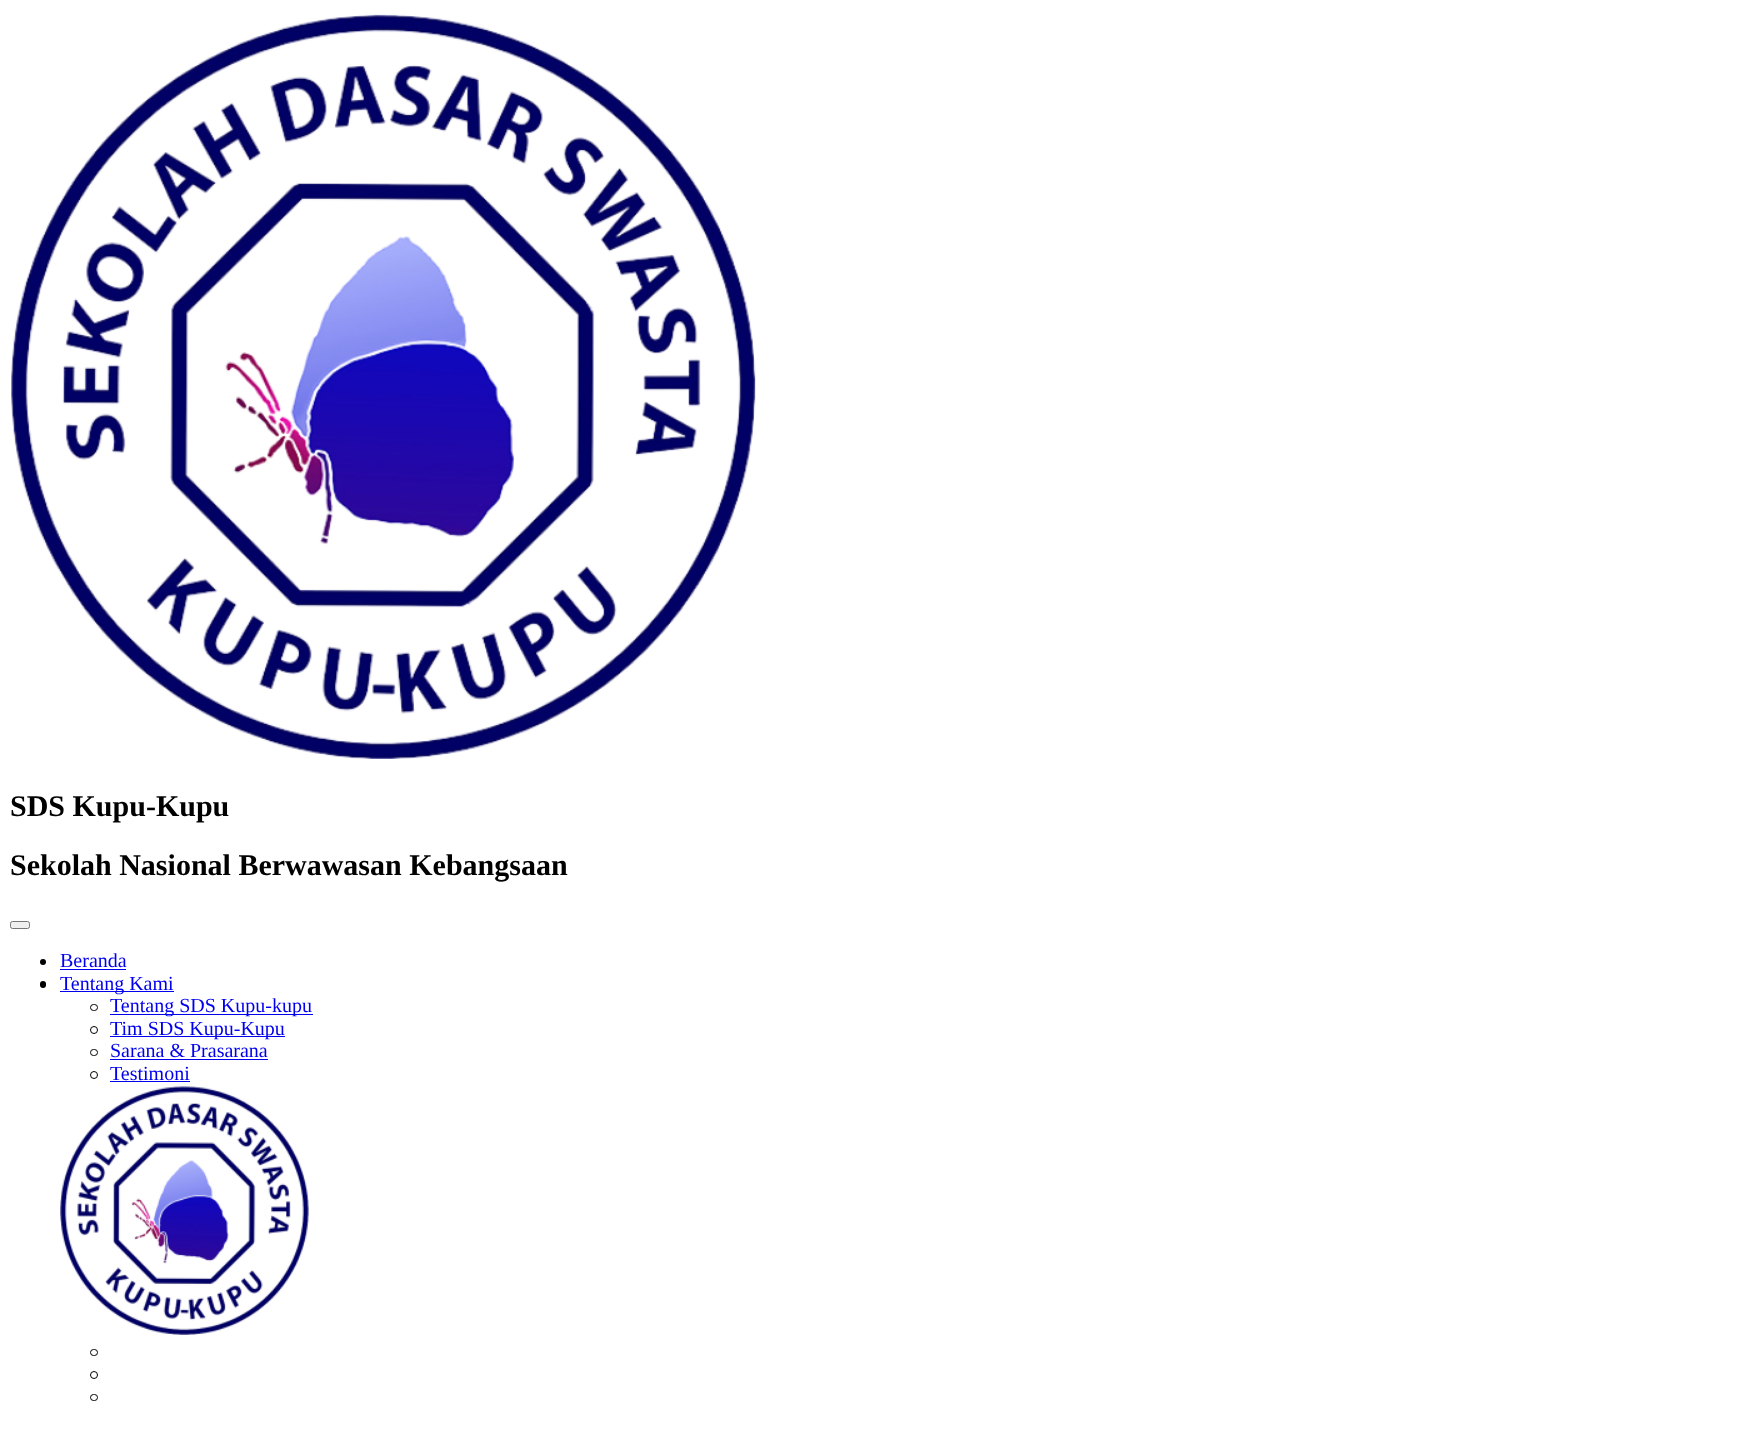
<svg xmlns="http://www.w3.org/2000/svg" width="1737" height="1441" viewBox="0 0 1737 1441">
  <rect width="100%" height="100%" fill="#ffffff"/>
  <image x="11" y="14" width="745" height="745" href="img1.png"/>
  <text x="10" y="816" font-family="Liberation Serif" font-size="30" font-weight="bold" fill="#000000">SDS Kupu-Kupu</text>
  <text x="10" y="875" font-family="Liberation Serif" font-size="30" font-weight="bold" fill="#000000">Sekolah Nasional Berwawasan Kebangsaan</text>
  <rect x="10.5" y="921.5" width="19" height="7" rx="2" fill="#efefef" stroke="#767676"/>
  <circle cx="43" cy="962" r="3" fill="#000000"/>
  <text x="60" y="967" font-family="Liberation Serif" font-size="20" fill="#0000ee">Beranda</text>
  <rect x="60" y="969" width="66" height="1" fill="#0000ee"/>
  <rect x="40" y="981" width="6" height="7" rx="3" fill="#000000"/>
  <rect x="60" y="991" width="114" height="1" fill="#0000ee"/>
  <text x="60" y="990" font-family="Liberation Serif" font-size="20" fill="#0000ee">Tentang Kami</text>
  <rect x="90.5" y="1004.5" width="7" height="6" rx="3" fill="none" stroke="#000000"/>
  <rect x="110" y="1014" width="203" height="1" fill="#0000ee"/>
  <text x="110" y="1012" font-family="Liberation Serif" font-size="20" fill="#0000ee">Tentang SDS Kupu-kupu</text>
  <circle cx="94" cy="1030" r="3.5" fill="none" stroke="#000000"/>
  <rect x="110" y="1036" width="175" height="1" fill="#0000ee"/>
  <text x="110" y="1035" font-family="Liberation Serif" font-size="20" fill="#0000ee">Tim SDS Kupu-Kupu</text>
  <rect x="90.5" y="1049.5" width="7" height="6" rx="3" fill="none" stroke="#000000"/>
  <text x="110" y="1057" font-family="Liberation Serif" font-size="20" fill="#0000ee">Sarana &amp; Prasarana</text>
  <rect x="110" y="1059" width="158" height="1" fill="#0000ee"/>
  <circle cx="94" cy="1075" r="3.5" fill="none" stroke="#000000"/>
  <text x="110" y="1080" font-family="Liberation Serif" font-size="20" fill="#0000ee">Testimoni</text>
  <rect x="110" y="1081" width="80" height="1" fill="#0000ee"/>
  <image x="60" y="1086" width="249" height="249" href="img2.png"/>
  <rect x="90.5" y="1349.5" width="7" height="6" rx="3" fill="none" stroke="#000000"/>
  <circle cx="94" cy="1375" r="3.5" fill="none" stroke="#000000"/>
  <rect x="90.5" y="1394.5" width="7" height="6" rx="3" fill="none" stroke="#000000"/>
</svg>
